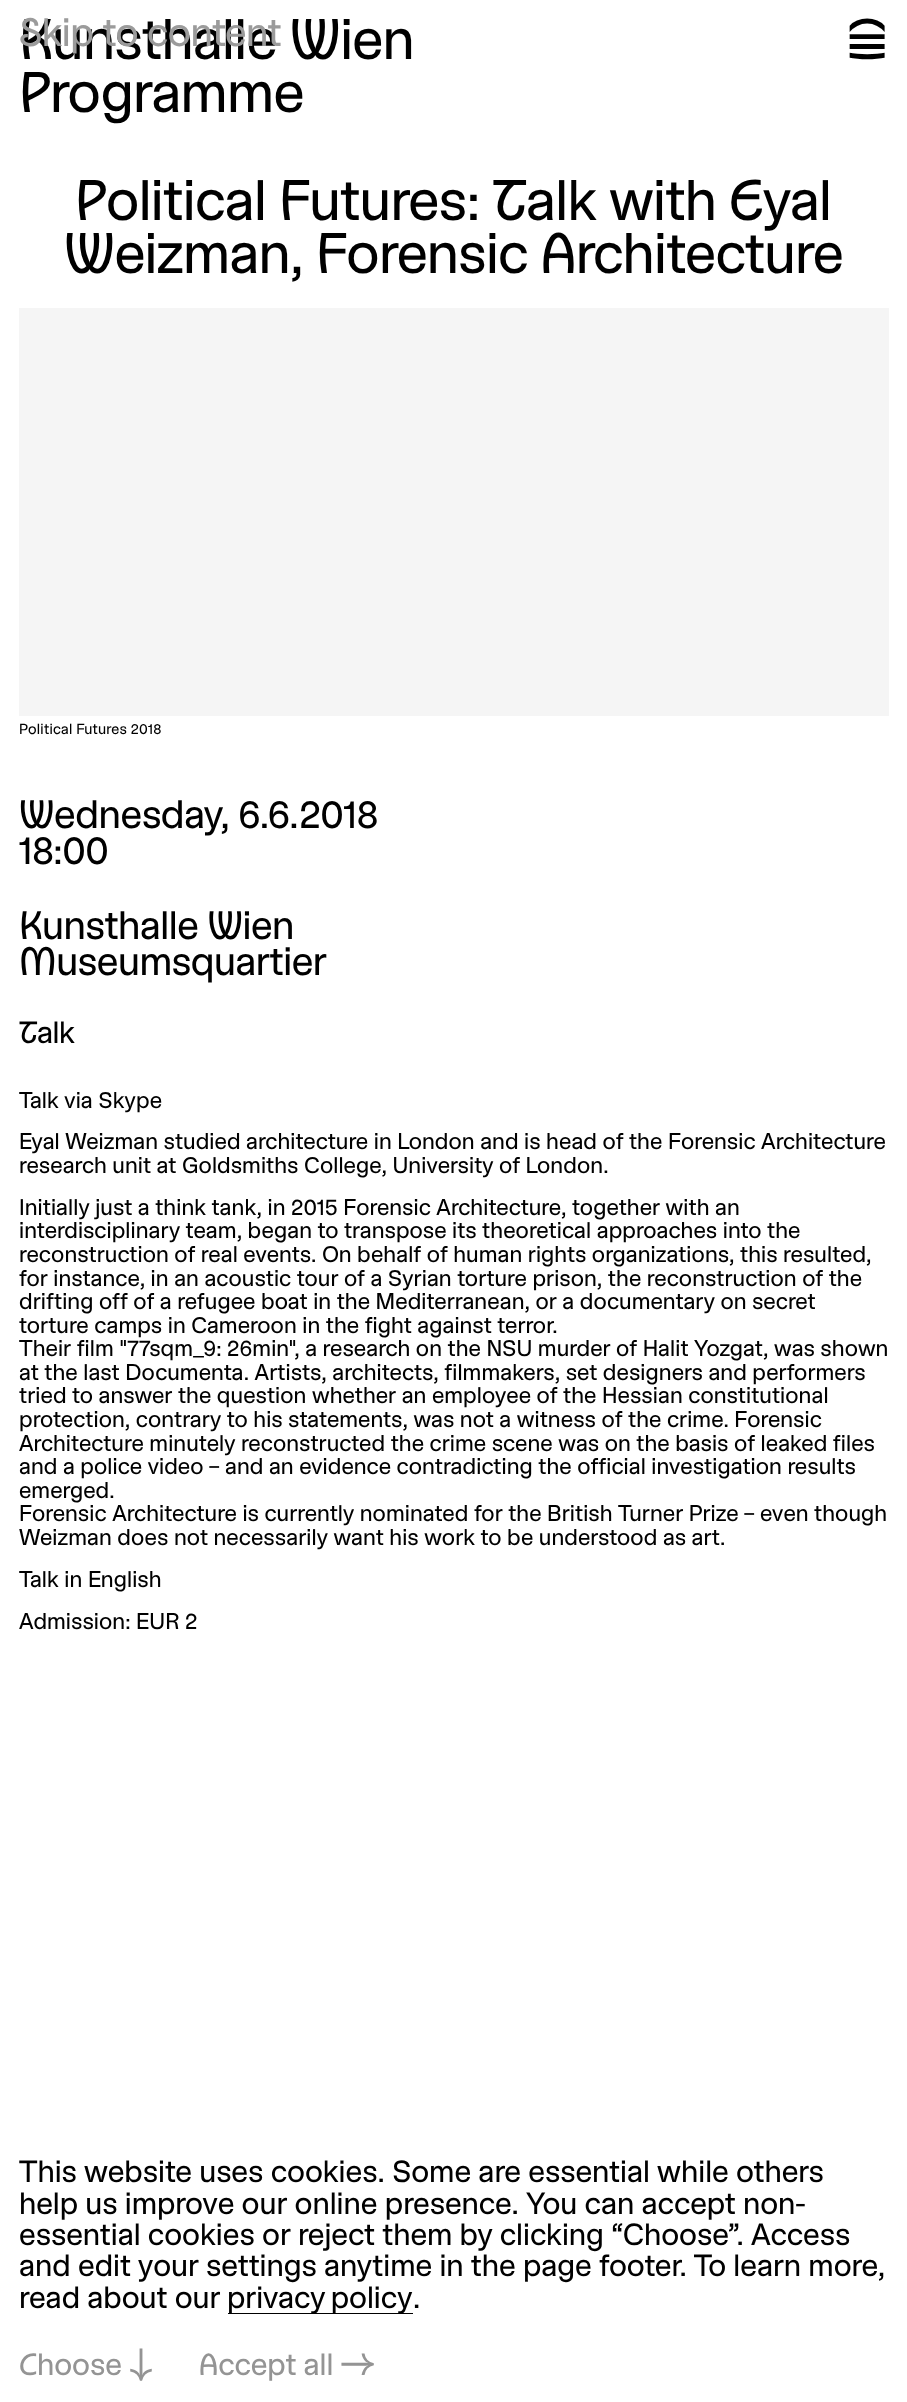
<svg xmlns="http://www.w3.org/2000/svg" width="907" height="2402" viewBox="0 0 907 2402">
  <rect width="100%" height="100%" fill="#ffffff"/>
  <text x="19" y="59" font-family="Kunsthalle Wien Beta" font-size="58.25" font-weight="bold" letter-spacing="-0.6" fill="#000000">Kunsthalle Wien</text>
  <text x="19" y="46" font-family="Kunsthalle Wien Beta" font-size="40.5" font-weight="bold" letter-spacing="-0.4" fill="#9b9b9b">Skip to content</text>
  <text x="845" y="59" font-family="Kunsthalle Wien Beta" font-size="58.25" font-weight="bold" letter-spacing="-0.6" fill="#000000">🍔</text>
  <text x="19" y="112" font-family="Kunsthalle Wien Beta" font-size="58.25" font-weight="bold" letter-spacing="-0.6" fill="#000000">Programme</text>
  <text x="75" y="220" font-family="Kunsthalle Wien Beta" font-size="58.25" font-weight="bold" letter-spacing="-0.6" fill="#000000">Political Futures: Talk with Eyal</text>
  <text x="64" y="273" font-family="Kunsthalle Wien Beta" font-size="58.25" font-weight="bold" letter-spacing="-0.6" fill="#000000">Weizman, Forensic Architecture</text>
  <rect x="19" y="308" width="870" height="408" fill="#f5f5f5"/>
  <text x="19" y="734" font-family="Kunsthalle Wien Beta" font-size="15" letter-spacing="0.25" fill="#000000">Political Futures 2018</text>
  <text x="19" y="828" font-family="Kunsthalle Wien Beta" font-size="40.5" font-weight="bold" letter-spacing="-0.4" fill="#000000">Wednesday, 6.6.2018</text>
  <text x="19" y="864" font-family="Kunsthalle Wien Beta" font-size="40.5" font-weight="bold" letter-spacing="-0.4" fill="#000000">18:00</text>
  <text x="19" y="939" font-family="Kunsthalle Wien Beta" font-size="40.5" font-weight="bold" letter-spacing="-0.4" fill="#000000">Kunsthalle Wien</text>
  <text x="19" y="975" font-family="Kunsthalle Wien Beta" font-size="40.5" font-weight="bold" letter-spacing="-0.4" fill="#000000">Museumsquartier</text>
  <text x="19" y="1043" font-family="Kunsthalle Wien Beta" font-size="31.4" font-weight="bold" letter-spacing="-0.5" fill="#000000">Talk</text>
  <text x="19" y="1108" font-family="Kunsthalle Wien Beta" font-size="23.2" letter-spacing="0.1" fill="#000000">Talk via Skype</text>
  <text x="19" y="1149" font-family="Kunsthalle Wien Beta" font-size="23.2" letter-spacing="0.1" fill="#000000">Eyal Weizman studied architecture in London and is head of the Forensic Architecture</text>
  <text x="19" y="1173" font-family="Kunsthalle Wien Beta" font-size="23.2" letter-spacing="0.1" fill="#000000">research unit at Goldsmiths College, University of London.</text>
  <text x="19" y="1215" font-family="Kunsthalle Wien Beta" font-size="23.2" letter-spacing="0.1" fill="#000000">Initially just a think tank, in 2015 Forensic Architecture, together with an</text>
  <text x="19" y="1238" font-family="Kunsthalle Wien Beta" font-size="23.2" letter-spacing="0.1" fill="#000000">interdisciplinary team, began to transpose its theoretical approaches into the</text>
  <text x="19" y="1262" font-family="Kunsthalle Wien Beta" font-size="23.2" letter-spacing="0.1" fill="#000000">reconstruction of real events. On behalf of human rights organizations, this resulted,</text>
  <text x="19" y="1286" font-family="Kunsthalle Wien Beta" font-size="23.2" letter-spacing="0.1" fill="#000000">for instance, in an acoustic tour of a Syrian torture prison, the reconstruction of the</text>
  <text x="19" y="1309" font-family="Kunsthalle Wien Beta" font-size="23.2" letter-spacing="0.1" fill="#000000">drifting off of a refugee boat in the Mediterranean, or a documentary on secret</text>
  <text x="19" y="1333" font-family="Kunsthalle Wien Beta" font-size="23.2" letter-spacing="0.1" fill="#000000">torture camps in Cameroon in the fight against terror.</text>
  <text x="19" y="1356" font-family="Kunsthalle Wien Beta" font-size="23.2" letter-spacing="0.1" fill="#000000">Their film "77sqm_9: 26min", a research on the NSU murder of Halit Yozgat, was shown</text>
  <text x="19" y="1380" font-family="Kunsthalle Wien Beta" font-size="23.2" letter-spacing="0.1" fill="#000000">at the last Documenta. Artists, architects, filmmakers, set designers and performers</text>
  <text x="19" y="1403" font-family="Kunsthalle Wien Beta" font-size="23.2" letter-spacing="0.1" fill="#000000">tried to answer the question whether an employee of the Hessian constitutional</text>
  <text x="19" y="1427" font-family="Kunsthalle Wien Beta" font-size="23.2" letter-spacing="0.1" fill="#000000">protection, contrary to his statements, was not a witness of the crime. Forensic</text>
  <text x="19" y="1451" font-family="Kunsthalle Wien Beta" font-size="23.2" letter-spacing="0.1" fill="#000000">Architecture minutely reconstructed the crime scene was on the basis of leaked files</text>
  <text x="19" y="1474" font-family="Kunsthalle Wien Beta" font-size="23.2" letter-spacing="0.1" fill="#000000">and a police video – and an evidence contradicting the official investigation results</text>
  <text x="19" y="1498" font-family="Kunsthalle Wien Beta" font-size="23.2" letter-spacing="0.1" fill="#000000">emerged.</text>
  <text x="19" y="1521" font-family="Kunsthalle Wien Beta" font-size="23.2" letter-spacing="0.1" fill="#000000">Forensic Architecture is currently nominated for the British Turner Prize – even though</text>
  <text x="19" y="1545" font-family="Kunsthalle Wien Beta" font-size="23.2" letter-spacing="0.1" fill="#000000">Weizman does not necessarily want his work to be understood as art.</text>
  <text x="19" y="1587" font-family="Kunsthalle Wien Beta" font-size="23.2" letter-spacing="0.1" fill="#000000">Talk in English</text>
  <text x="19" y="1629" font-family="Kunsthalle Wien Beta" font-size="23.2" letter-spacing="0.1" fill="#000000">Admission: EUR 2</text>
  <text x="19" y="2182" font-family="Kunsthalle Wien Beta" font-size="31.4" fill="#000000">This website uses cookies. Some are essential while others</text>
  <text x="19" y="2214" font-family="Kunsthalle Wien Beta" font-size="31.4" fill="#000000">help us improve our online presence. You can accept non-</text>
  <text x="19" y="2245" font-family="Kunsthalle Wien Beta" font-size="31.4" fill="#000000">essential cookies or reject them by clicking “Choose”. Access</text>
  <text x="19" y="2276" font-family="Kunsthalle Wien Beta" font-size="31.4" fill="#000000">and edit your settings anytime in the page footer. To learn more,</text>
  <text x="19" y="2308" font-family="Kunsthalle Wien Beta" font-size="31.4" fill="#000000">read about our</text>
  <rect x="228" y="2313" width="185" height="1" fill="#000000"/>
  <text x="227" y="2308" word-spacing="-2" font-family="Kunsthalle Wien Beta" font-size="31.4" fill="#000000">privacy policy</text>
  <text x="413" y="2308" font-family="Kunsthalle Wien Beta" font-size="31.4" fill="#000000">.</text>
  <text x="19" y="2375" font-family="Kunsthalle Wien Beta" font-size="31.4" font-weight="bold" fill="#949494">Choose</text>
  <text x="130" y="2375" font-family="Kunsthalle Wien Beta" font-size="31.4" font-weight="bold" fill="#949494">↓</text>
  <text x="199" y="2375" font-family="Kunsthalle Wien Beta" font-size="31.4" font-weight="bold" fill="#949494">Accept all</text>
  <text x="341" y="2375" font-family="Kunsthalle Wien Beta" font-size="31.4" font-weight="bold" fill="#949494">→</text>
</svg>
